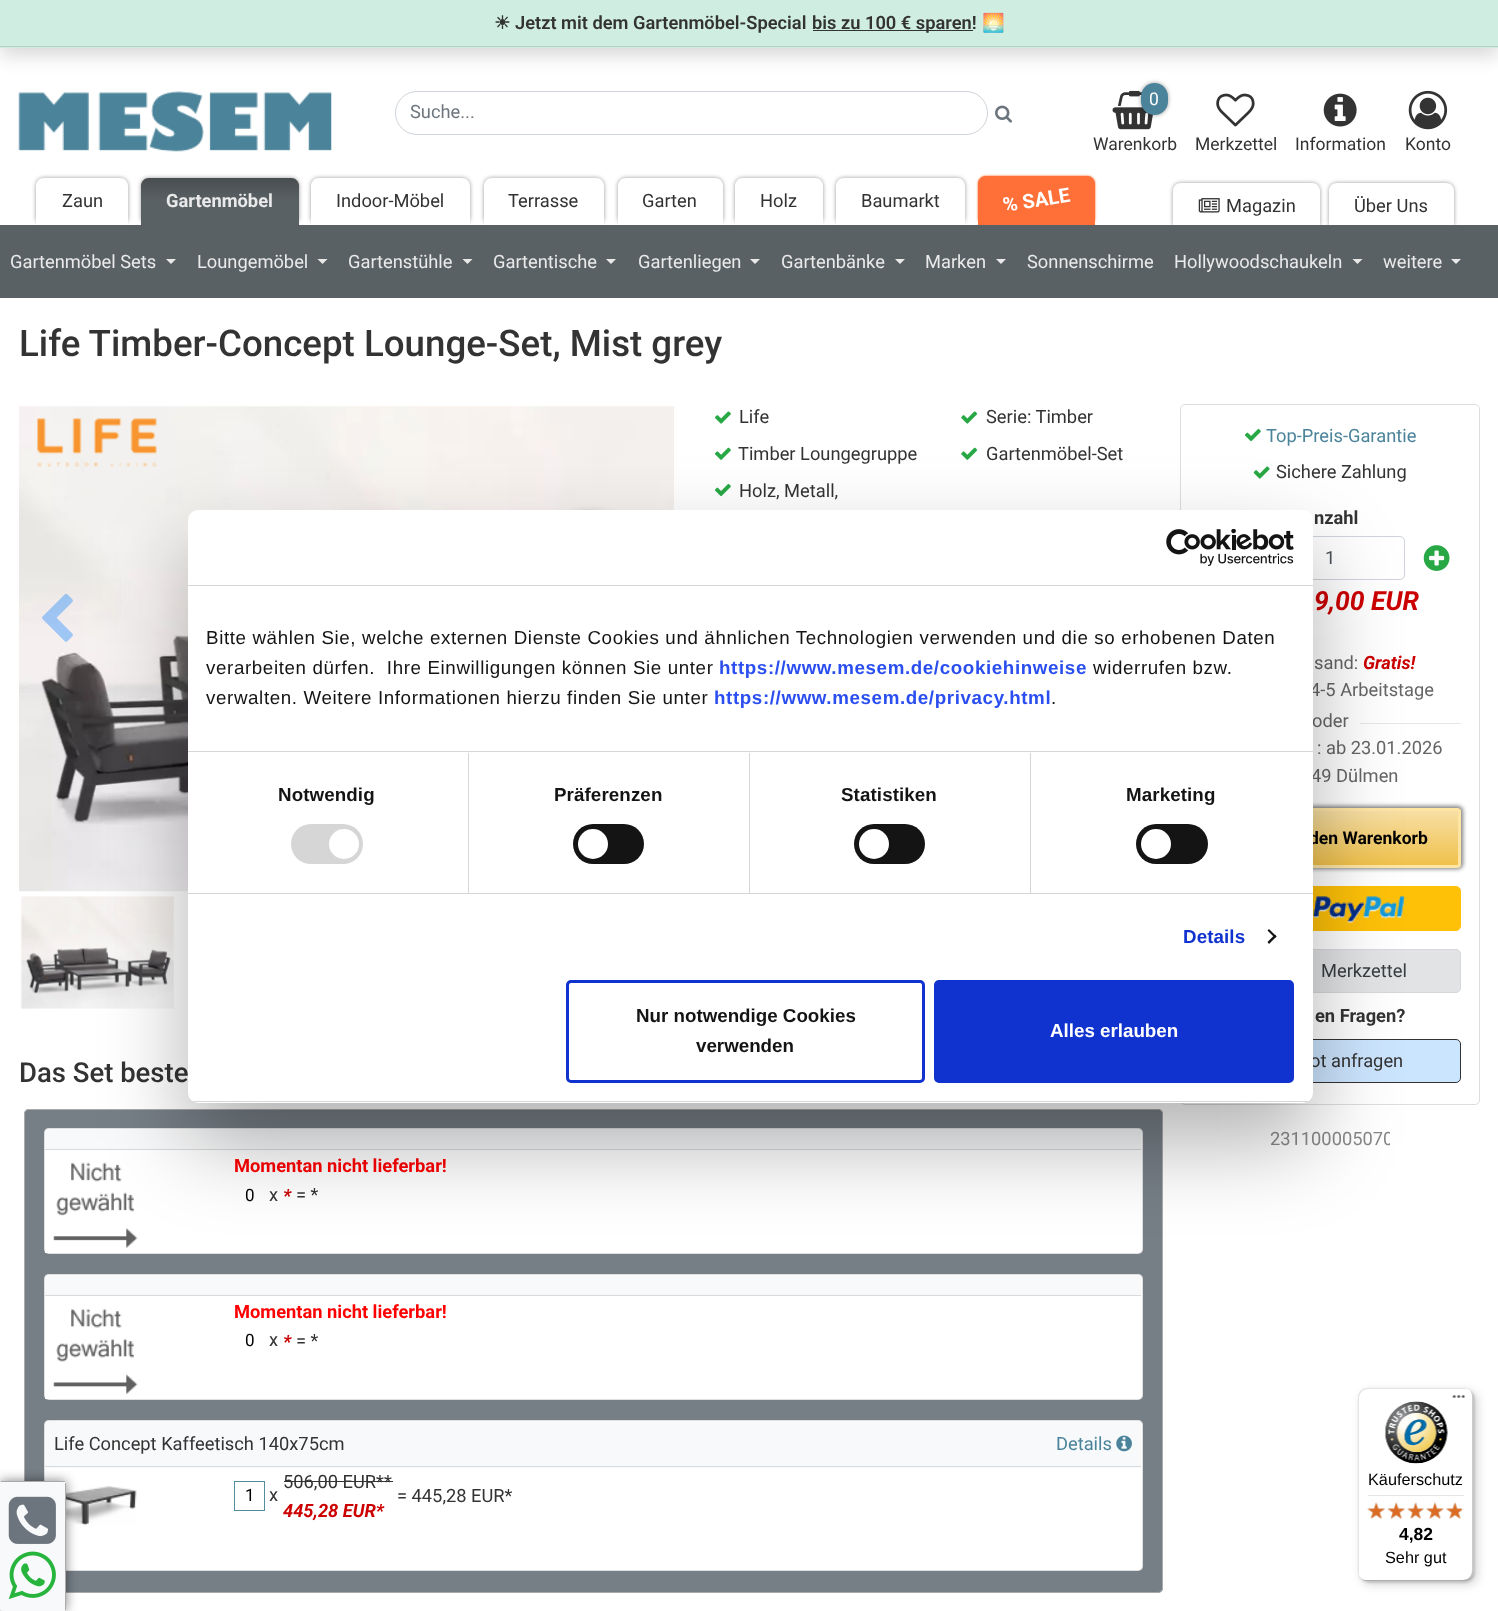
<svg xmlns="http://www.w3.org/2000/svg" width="1498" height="1611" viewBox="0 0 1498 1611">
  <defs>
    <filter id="blur1" x="-50%" y="-200%" width="200%" height="500%"><feGaussianBlur stdDeviation="9"/></filter>
    <filter id="blur2" x="-50%" y="-200%" width="200%" height="500%"><feGaussianBlur stdDeviation="2"/></filter>
    <clipPath id="clip1"><path d="M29 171H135V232H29ZM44 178H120C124.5 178 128 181.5 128 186V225H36V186C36 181.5 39.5 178 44 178Z" clip-rule="evenodd"/></clipPath>
    <linearGradient id="g1" gradientUnits="userSpaceOnUse" x1="220" y1="225" x2="220" y2="178"><stop offset="0.5" stop-color="#000000" stop-opacity="0"/><stop offset="1" stop-color="#000000" stop-opacity="0.2"/></linearGradient>
    <clipPath id="clip2"><path d="M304 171H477V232H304ZM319 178H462C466.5 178 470 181.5 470 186V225H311V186C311 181.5 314.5 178 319 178Z" clip-rule="evenodd"/></clipPath>
    <clipPath id="clip3"><path d="M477 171H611V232H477ZM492 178H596C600.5 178 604 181.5 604 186V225H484V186C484 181.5 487.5 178 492 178Z" clip-rule="evenodd"/></clipPath>
    <clipPath id="clip4"><path d="M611 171H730V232H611ZM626 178H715C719.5 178 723 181.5 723 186V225H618V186C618 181.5 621.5 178 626 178Z" clip-rule="evenodd"/></clipPath>
    <clipPath id="clip5"><path d="M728 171H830V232H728ZM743 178H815C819.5 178 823 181.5 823 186V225H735V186C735 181.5 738.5 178 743 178Z" clip-rule="evenodd"/></clipPath>
    <clipPath id="clip6"><path d="M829 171H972V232H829ZM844 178H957C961.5 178 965 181.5 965 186V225H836V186C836 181.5 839.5 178 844 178Z" clip-rule="evenodd"/></clipPath>
    <filter id="blur3" x="-50%" y="-200%" width="200%" height="500%"><feGaussianBlur stdDeviation="1"/></filter>
    <clipPath id="clip7"><path d="M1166 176H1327V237H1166ZM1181 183H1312C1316.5 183 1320 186.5 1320 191V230H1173V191C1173 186.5 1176.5 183 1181 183Z" clip-rule="evenodd"/></clipPath>
    <clipPath id="clip8"><path d="M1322 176H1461V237H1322ZM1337 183H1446C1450.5 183 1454 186.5 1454 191V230H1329V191C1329 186.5 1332.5 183 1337 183Z" clip-rule="evenodd"/></clipPath>
    <filter id="blur4" x="-50%" y="-200%" width="200%" height="500%"><feGaussianBlur stdDeviation="5"/></filter>
    <linearGradient id="g2" gradientUnits="userSpaceOnUse" x1="1330" y1="810" x2="1330" y2="865"><stop offset="0" stop-color="#f7dfa5"/><stop offset="1" stop-color="#f0c14b"/></linearGradient>
    <clipPath id="clip9"><rect x="1270" y="1125" width="120" height="28"/></clipPath>
    <filter id="blur5" x="-50%" y="-200%" width="200%" height="500%"><feGaussianBlur stdDeviation="42.5"/></filter>
    <clipPath id="clip10"><rect x="188" y="510" width="1125" height="593" rx="10"/></clipPath>
    <filter id="blur6" x="-50%" y="-200%" width="200%" height="500%"><feGaussianBlur stdDeviation="6"/></filter>
  </defs>
  <rect width="100%" height="100%" fill="#ffffff"/>
  <rect x="0" y="9" width="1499" height="47" fill="#000000" fill-opacity="0.15" filter="url(#blur1)"/>
  <rect x="0" y="0" width="1498" height="48" fill="#cfede1"/>
  <rect x="0" y="46" width="1498" height="1" fill="#b5ccc3"/>
  <text x="494" y="29" font-family="DejaVu Sans" font-size="18.3" font-weight="bold" fill="#333333">☀</text>
  <text x="515" y="29" font-family="Roboto" font-size="18.3" font-weight="600" fill="#333333">Jetzt mit dem Gartenmöbel-Special</text>
  <rect x="813" y="30" width="160" height="1" fill="#333333"/>
  <text x="812" y="29" font-family="Roboto" font-size="18.3" font-weight="600" fill="#333333">bis zu 100 € sparen!</text>
  <text x="982" y="29" font-family="Noto Color Emoji" font-size="18.3" font-weight="bold" fill="#333333">🌅</text>
  <image x="18" y="91" width="314" height="61" href="img1.png"/>
  <rect x="395.5" y="91.5" width="592" height="43" rx="21.5" fill="none" stroke="#ced4da"/>
  <text x="410" y="118" font-family="Roboto" font-size="18.3" fill="#6c757d">Suche...</text>
  <image x="995" y="105" width="17" height="18" href="img2.png"/>
  <image x="1112" y="90" width="41" height="40" href="img3.png"/>
  <rect x="1141" y="83" width="27" height="32" rx="13.5" fill="#000000" fill-opacity="0.4" filter="url(#blur2)"/>
  <rect x="1141" y="83" width="27" height="32" rx="13.5" fill="#4b849a"/>
  <text x="1149" y="105" font-family="Roboto" font-size="17.5" fill="#ffffff">0</text>
  <text x="1093" y="150" font-family="Roboto" font-size="17.5" fill="#333333">Warenkorb</text>
  <image x="1216" y="93" width="39" height="34" href="img4.png"/>
  <text x="1195" y="150" font-family="Roboto" font-size="17.5" fill="#333333">Merkzettel</text>
  <image x="1323" y="93" width="34" height="34" href="img5.png"/>
  <text x="1295" y="150" font-family="Roboto" font-size="17.5" fill="#333333">Information</text>
  <image x="1408" y="90" width="40" height="40" href="img6.png"/>
  <text x="1405" y="150" font-family="Roboto" font-size="17.5" fill="#333333">Konto</text>
  <g clip-path="url(#clip1)">
    <rect x="36" y="178" width="92" height="47" rx="8" fill="#000000" fill-opacity="0.4" filter="url(#blur2)"/>
  </g>
  <text x="62" y="207" font-family="Roboto" font-size="18.3" fill="#333333">Zaun</text>
  <rect x="141" y="178" width="158" height="47" rx="8" fill="#000000" fill-opacity="0.4" filter="url(#blur2)"/>
  <path d="M149 178H291C295.5 178 299 181.5 299 186V225H141V186C141 181.5 144.5 178 149 178Z" fill="#5a6164"/>
  <path d="M149 178H291C295.5 178 299 181.5 299 186V225H141V186C141 181.5 144.5 178 149 178Z" fill="url(#g1)"/>
  <text x="166" y="207" font-family="Roboto" font-size="18.3" font-weight="bold" fill="#eaeaea">Gartenmöbel</text>
  <g clip-path="url(#clip2)">
    <rect x="311" y="178" width="159" height="47" rx="8" fill="#000000" fill-opacity="0.4" filter="url(#blur2)"/>
  </g>
  <text x="336" y="207" font-family="Roboto" font-size="18.3" fill="#333333">Indoor-Möbel</text>
  <g clip-path="url(#clip3)">
    <rect x="484" y="178" width="120" height="47" rx="8" fill="#000000" fill-opacity="0.4" filter="url(#blur2)"/>
  </g>
  <text x="508" y="207" font-family="Roboto" font-size="18.3" fill="#333333">Terrasse</text>
  <g clip-path="url(#clip4)">
    <rect x="618" y="178" width="105" height="47" rx="8" fill="#000000" fill-opacity="0.4" filter="url(#blur2)"/>
  </g>
  <text x="642" y="207" font-family="Roboto" font-size="18.3" fill="#333333">Garten</text>
  <g clip-path="url(#clip5)">
    <rect x="735" y="178" width="88" height="47" rx="8" fill="#000000" fill-opacity="0.4" filter="url(#blur2)"/>
  </g>
  <text x="760" y="207" font-family="Roboto" font-size="18.3" fill="#333333">Holz</text>
  <g clip-path="url(#clip6)">
    <rect x="836" y="178" width="129" height="47" rx="8" fill="#000000" fill-opacity="0.4" filter="url(#blur2)"/>
  </g>
  <text x="861" y="207" font-family="Roboto" font-size="18.3" fill="#333333">Baumarkt</text>
  <rect x="978" y="176" width="117" height="50" rx="8" fill="#ff6224" filter="url(#blur3)"/>
  <path d="M986 176H1087C1091.5 176 1095 179.5 1095 184V226H978V184C978 179.5 981.5 176 986 176Z" fill="#ff7038"/>
  <text x="1004" y="212" transform="rotate(-9 1004 212)" font-family="Roboto" font-size="20" font-weight="bold" fill="#ffffff">% SALE</text>
  <g clip-path="url(#clip7)">
    <rect x="1173" y="183" width="147" height="47" rx="8" fill="#000000" fill-opacity="0.4" filter="url(#blur2)"/>
  </g>
  <image x="1198" y="198" width="22" height="15" href="img7.png"/>
  <text x="1226" y="212" font-family="Roboto" font-size="18.3" fill="#333333">Magazin</text>
  <g clip-path="url(#clip8)">
    <rect x="1329" y="183" width="125" height="47" rx="8" fill="#000000" fill-opacity="0.4" filter="url(#blur2)"/>
  </g>
  <text x="1354" y="212" font-family="Roboto" font-size="18.3" fill="#333333">Über Uns</text>
  <rect x="0" y="225" width="1498" height="73" fill="#5a6164"/>
  <text x="10" y="268" font-family="Roboto" font-size="18.3" fill="#eaeaea">Gartenmöbel Sets</text>
  <path d="M166 259H176L171 264Z" fill="#eaeaea"/>
  <text x="197" y="268" font-family="Roboto" font-size="18.3" fill="#eaeaea">Loungemöbel</text>
  <path d="M317.5 259H327.5L322.5 264Z" fill="#eaeaea"/>
  <text x="348" y="268" font-family="Roboto" font-size="18.3" fill="#eaeaea">Gartenstühle</text>
  <path d="M462.5 259H472.5L467.5 264Z" fill="#eaeaea"/>
  <text x="493" y="268" font-family="Roboto" font-size="18.3" fill="#eaeaea">Gartentische</text>
  <path d="M606 259H616L611 264Z" fill="#eaeaea"/>
  <text x="638" y="268" font-family="Roboto" font-size="18.3" fill="#eaeaea">Gartenliegen</text>
  <path d="M750 259H760L755 264Z" fill="#eaeaea"/>
  <text x="781" y="268" font-family="Roboto" font-size="18.3" fill="#eaeaea">Gartenbänke</text>
  <path d="M895 259H905L900 264Z" fill="#eaeaea"/>
  <text x="925" y="268" font-family="Roboto" font-size="18.3" fill="#eaeaea">Marken</text>
  <path d="M996 259H1006L1001 264Z" fill="#eaeaea"/>
  <text x="1027" y="268" font-family="Roboto" font-size="18.3" fill="#eaeaea">Sonnenschirme</text>
  <text x="1174" y="268" font-family="Roboto" font-size="18.3" fill="#eaeaea">Hollywoodschaukeln</text>
  <path d="M1352.5 259H1362.5L1357.5 264Z" fill="#eaeaea"/>
  <text x="1383" y="268" font-family="Roboto" font-size="18.3" fill="#eaeaea">weitere</text>
  <path d="M1451 259H1461L1456 264Z" fill="#eaeaea"/>
  <text x="19" y="356" font-family="Roboto" font-size="36.7" font-weight="500" fill="#333333">Life Timber-Concept Lounge-Set, Mist grey</text>
  <text x="19" y="1082" font-family="Roboto" font-size="27.5" font-weight="500" fill="#333333">Das Set beste</text>
  <image x="19" y="406" width="655" height="486" href="img8.png"/>
  <image x="37" y="418" width="120" height="49" href="img9.png"/>
  <rect x="531" y="515" width="118" height="118" rx="59" fill="#000000" fill-opacity="0.5" filter="url(#blur4)"/>
  <image x="42" y="593" width="31" height="49" href="img10.png"/>
  <image x="20" y="896" width="154" height="113" href="img11.png"/>
  <image x="715" y="411" width="16" height="13" href="img12.png"/>
  <text x="739" y="423" font-family="Roboto" font-size="18.3" fill="#333333">Life</text>
  <image x="961" y="411" width="17" height="13" href="img13.png"/>
  <text x="986" y="423" font-family="Roboto" font-size="18.3" fill="#333333">Serie: Timber</text>
  <image x="715" y="447" width="16" height="13" href="img14.png"/>
  <text x="738" y="460" font-family="Roboto" font-size="18.3" fill="#333333">Timber Loungegruppe</text>
  <image x="961" y="447" width="17" height="13" href="img15.png"/>
  <text x="986" y="460" font-family="Roboto" font-size="18.3" fill="#333333">Gartenmöbel-Set</text>
  <image x="715" y="484" width="16" height="13" href="img16.png"/>
  <text x="739" y="497" font-family="Roboto" font-size="18.3" fill="#333333">Holz, Metall,</text>
  <rect x="1180.5" y="404.5" width="299" height="700" rx="4.5" fill="none" stroke="#dddddd"/>
  <image x="1245" y="429" width="16" height="13" href="img16.png"/>
  <text x="1266" y="442" font-family="Roboto" font-size="18.3" fill="#4b849a">Top-Preis-Garantie</text>
  <image x="1253" y="466" width="17" height="13" href="img17.png"/>
  <text x="1276" y="478" font-family="Roboto" font-size="18.3" fill="#333333">Sichere Zahlung</text>
  <text x="1314" y="524" font-family="Roboto" font-size="18.3" font-weight="bold" fill="#333333">nzahl</text>
  <rect x="1255.5" y="536.5" width="149" height="43" rx="4.5" fill="none" stroke="#ced4da"/>
  <text x="1325" y="564" font-family="Roboto" font-size="18.3" fill="#495057">1</text>
  <image x="1423" y="545" width="27" height="26" href="img18.png"/>
  <text x="1314" y="610" font-family="Roboto" font-size="26.5" font-weight="bold" font-style="italic" fill="#cc0000">9,00 EUR</text>
  <text x="1314" y="669" font-family="Roboto" font-size="18.3" fill="#666666">sand:</text>
  <text x="1363" y="669" font-family="Roboto" font-size="18.3" font-weight="bold" font-style="italic" fill="#cc0000">Gratis!</text>
  <text x="1310" y="696" font-family="Roboto" font-size="18.3" fill="#666666">4-5 Arbeitstage</text>
  <text x="1312" y="727" font-family="Roboto" font-size="18.3" fill="#666666">oder</text>
  <rect x="1360" y="723" width="101" height="1" fill="#e6e6e6"/>
  <text x="1317" y="754" font-family="Roboto" font-size="18.3" fill="#666666">: ab 23.01.2026</text>
  <text x="1311" y="782" font-family="Roboto" font-size="18.3" fill="#666666">49 Dülmen</text>
  <rect x="1198" y="806" width="265" height="63" rx="5" fill="#000000" fill-opacity="0.5" filter="url(#blur2)"/>
  <rect x="1313" y="810" width="148" height="55" fill="url(#g2)"/>
  <rect x="1200.5" y="809.5" width="259" height="57" rx="2.5" fill="none" stroke="#ffe5a4" stroke-width="3"/>
  <text x="1309" y="844" font-family="Roboto" font-size="17.5" font-weight="bold" fill="#000000">den Warenkorb</text>
  <rect x="1199.5" y="886.5" width="261" height="44" rx="4.5" fill="#ffc107" stroke="#ffc107"/>
  <image x="1313" y="896" width="93" height="27" href="img19.png"/>
  <rect x="1199.5" y="949.5" width="261" height="43" rx="4.5" fill="#e2e3e5" stroke="#d6d8db"/>
  <text x="1321" y="977" font-family="Roboto" font-size="18.3" fill="#383d41">Merkzettel</text>
  <text x="1315" y="1022" font-family="Roboto" font-size="18.3" font-weight="bold" fill="#333333">en Fragen?</text>
  <rect x="1199.5" y="1039.5" width="261" height="43" rx="4.5" fill="#cce5ff" stroke="#333333"/>
  <text x="1310" y="1067" font-family="Roboto" font-size="18.3" fill="#333333">ot anfragen</text>
  <g clip-path="url(#clip9)">
    <text x="1270" y="1145" font-family="Roboto" font-size="18.3" fill="#888888">231100005070</text>
  </g>
  <rect x="24" y="1109" width="1139" height="484" rx="5" fill="#6c757d"/>
  <rect x="24.5" y="1109.5" width="1138" height="483" rx="4.5" fill="#ffffff" fill-opacity="0.07" stroke="#aaaaaa"/>
  <rect x="44" y="1128" width="1099" height="126" rx="5" fill="#ffffff"/>
  <rect x="44.5" y="1128.5" width="1098" height="125" rx="4.5" fill="none" stroke="#000000" stroke-opacity="0.12"/>
  <path d="M48 1129H1138C1139.5 1129 1141 1130.5 1141 1132V1150H45V1132C45 1130.5 46.5 1129 48 1129Z" fill="#f8f9fa"/>
  <rect x="45" y="1149" width="1096" height="1" fill="#d9dadb"/>
  <rect x="45" y="1250" width="3" height="3" fill="#ffffff"/>
  <image x="53" y="1162" width="85" height="86" href="img20.png"/>
  <text x="234" y="1172" font-family="Roboto" font-size="18.3" font-weight="bold" fill="#ff0000">Momentan nicht lieferbar!</text>
  <text x="245" y="1201" font-family="Roboto" font-size="17" fill="#000000">0</text>
  <text x="269" y="1201" font-family="Roboto" font-size="18.3" fill="#333333">x</text>
  <text x="283" y="1202" font-family="Roboto" font-size="18.3" font-weight="bold" font-style="italic" fill="#cc0000">*</text>
  <text x="296" y="1201" font-family="Roboto" font-size="18.3" fill="#333333">= *</text>
  <rect x="44" y="1274" width="1099" height="126" rx="5" fill="#ffffff"/>
  <rect x="44.5" y="1274.5" width="1098" height="125" rx="4.5" fill="none" stroke="#000000" stroke-opacity="0.12"/>
  <path d="M48 1275H1138C1139.5 1275 1141 1276.5 1141 1278V1296H45V1278C45 1276.5 46.5 1275 48 1275Z" fill="#f8f9fa"/>
  <rect x="45" y="1295" width="1096" height="1" fill="#d9dadb"/>
  <rect x="45" y="1396" width="3" height="3" fill="#ffffff"/>
  <image x="53" y="1308" width="85" height="86" href="img21.png"/>
  <text x="234" y="1318" font-family="Roboto" font-size="18.3" font-weight="bold" fill="#ff0000">Momentan nicht lieferbar!</text>
  <text x="245" y="1346" font-family="Roboto" font-size="17" fill="#000000">0</text>
  <text x="269" y="1346" font-family="Roboto" font-size="18.3" fill="#333333">x</text>
  <text x="283" y="1348" font-family="Roboto" font-size="18.3" font-weight="bold" font-style="italic" fill="#cc0000">*</text>
  <text x="296" y="1347" font-family="Roboto" font-size="18.3" fill="#333333">= *</text>
  <rect x="44" y="1420" width="1099" height="151" rx="5" fill="#ffffff"/>
  <rect x="44.5" y="1420.5" width="1098" height="150" rx="4.5" fill="none" stroke="#000000" stroke-opacity="0.12"/>
  <path d="M48 1421H1138C1139.5 1421 1141 1422.5 1141 1424V1468H45V1424C45 1422.5 46.5 1421 48 1421Z" fill="#f8f9fa"/>
  <rect x="45" y="1466" width="1096" height="1" fill="#d9dadb"/>
  <text x="54" y="1450" font-family="Roboto" font-size="18.3" fill="#333333">Life Concept Kaffeetisch 140x75cm</text>
  <text x="1056" y="1450" font-family="Roboto" font-size="18.3" fill="#4b849a">Details</text>
  <image x="1116" y="1435" width="16" height="17" href="img22.png"/>
  <rect x="45" y="1567" width="3" height="3" fill="#ffffff"/>
  <image x="66" y="1486" width="71" height="40" href="img23.png"/>
  <rect x="234.5" y="1481.5" width="30" height="29" fill="none" stroke="#558ba0"/>
  <text x="245" y="1501" font-family="Roboto" font-size="17" fill="#000000">1</text>
  <text x="269" y="1501" font-family="Roboto" font-size="18.3" fill="#333333">x</text>
  <text x="283" y="1488" font-family="Roboto" font-size="18.3" fill="#333333">506,00 EUR**</text>
  <rect x="284" y="1481" width="109" height="1" fill="#333333"/>
  <text x="283" y="1517" font-family="Roboto" font-size="18.3" font-weight="bold" font-style="italic" fill="#cc0000">445,28 EUR*</text>
  <text x="397" y="1502" font-family="Roboto" font-size="18.3" fill="#333333">= 445,28 EUR*</text>
  <rect x="188" y="550" width="1125" height="593" rx="10" fill="#000000" fill-opacity="0.3" filter="url(#blur5)"/>
  <rect x="188" y="510" width="1125" height="593" rx="10" fill="#ffffff"/>
  <rect x="188" y="585" width="1125" height="1" fill="#d6d6d6"/>
  <image x="1166" y="529" width="128" height="37" href="img24.png"/>
  <rect x="188" y="751" width="1125" height="1" fill="#d6d6d6"/>
  <text x="206" y="644" font-family="Liberation Sans" font-size="18.75" letter-spacing="0.62" fill="#141414">Bitte wählen Sie, welche externen Dienste Cookies und ähnlichen Technologien verwenden und die so erhobenen Daten</text>
  <text x="206" y="674" font-family="Liberation Sans" font-size="18.75" letter-spacing="0.62" fill="#141414" xml:space="preserve">verarbeiten dürfen.  Ihre Einwilligungen können Sie unter</text>
  <text x="719" y="674" font-family="Liberation Sans" font-size="18.75" font-weight="bold" letter-spacing="0.62" fill="#2a4eef">https://www.mesem.de/cookiehinweise</text>
  <text x="1093" y="674" font-family="Liberation Sans" font-size="18.75" letter-spacing="0.62" fill="#141414">widerrufen bzw.</text>
  <text x="206" y="704" font-family="Liberation Sans" font-size="18.75" letter-spacing="0.62" fill="#141414">verwalten. Weitere Informationen hierzu finden Sie unter</text>
  <text x="714" y="704" font-family="Liberation Sans" font-size="18.75" font-weight="bold" letter-spacing="0.62" fill="#2a4eef">https://www.mesem.de/privacy.html</text>
  <text x="1051" y="704" font-family="Liberation Sans" font-size="18.75" letter-spacing="0.62" fill="#141414">.</text>
  <rect x="188" y="893" width="1125" height="1" fill="#d6d6d6"/>
  <rect x="468" y="753" width="1" height="140" fill="#d6d6d6"/>
  <text x="278" y="801" font-family="Liberation Sans" font-size="18.75" font-weight="bold" letter-spacing="0.1" fill="#141414">Notwendig</text>
  <rect x="291" y="824" width="72" height="40" rx="20" fill="#d6d6d6"/>
  <circle cx="344" cy="844" r="15" fill="#ffffff"/>
  <rect x="749" y="753" width="1" height="140" fill="#d6d6d6"/>
  <text x="554" y="801" font-family="Liberation Sans" font-size="18.75" font-weight="bold" letter-spacing="0.1" fill="#141414">Präferenzen</text>
  <rect x="573" y="824" width="71" height="40" rx="20" fill="#141414"/>
  <circle cx="593" cy="844" r="15" fill="#ffffff"/>
  <rect x="1030" y="753" width="1" height="140" fill="#d6d6d6"/>
  <text x="841" y="801" font-family="Liberation Sans" font-size="18.75" font-weight="bold" letter-spacing="0.1" fill="#141414">Statistiken</text>
  <rect x="854" y="824" width="71" height="40" rx="20" fill="#141414"/>
  <circle cx="874" cy="844" r="15" fill="#ffffff"/>
  <text x="1126" y="801" font-family="Liberation Sans" font-size="18.75" font-weight="bold" letter-spacing="0.1" fill="#141414">Marketing</text>
  <rect x="1136" y="824" width="72" height="40" rx="20" fill="#141414"/>
  <circle cx="1156" cy="844" r="15" fill="#ffffff"/>
  <text x="1183" y="943" font-family="Liberation Sans" font-size="18.75" font-weight="bold" letter-spacing="0.1" fill="#1032cf">Details</text>
  <path d="M1269 929L1276.5 936.5L1275 938L1267.5 930.5Z" fill="#141414"/>
  <path d="M1275 934.5L1276.5 936.5L1269 944L1267.5 942Z" fill="#141414"/>
  <g clip-path="url(#clip10)">
    <rect x="188" y="1101" width="1125" height="1" fill="#d6d6d6"/>
  </g>
  <rect x="567.5" y="981.5" width="356" height="100" rx="3.5" fill="none" stroke="#1032cf" stroke-width="3"/>
  <text x="636" y="1022" font-family="Liberation Sans" font-size="18.75" font-weight="bold" fill="#141414">Nur notwendige Cookies</text>
  <text x="696" y="1052" font-family="Liberation Sans" font-size="18.75" font-weight="bold" fill="#141414">verwenden</text>
  <rect x="935.5" y="981.5" width="357" height="100" rx="3.5" fill="#1032cf" stroke="#1032cf" stroke-width="3"/>
  <text x="1050" y="1037" font-family="Liberation Sans" font-size="18.75" font-weight="bold" fill="#ffffff">Alles erlauben</text>
  <rect x="0" y="1481" width="66" height="130" rx="2.5" fill="#000000" fill-opacity="0.5" filter="url(#blur6)"/>
  <rect x="0" y="1481" width="66" height="130" rx="2.5" fill="#f8f9fa"/>
  <rect x="1" y="1481" width="64" height="1" fill="#aaaaaa"/>
  <rect x="65" y="1483" width="1" height="127" fill="#aaaaaa"/>
  <image x="8" y="1496" width="48" height="48" href="img25.png"/>
  <image x="8" y="1551" width="48" height="48" href="img26.png"/>
  <rect x="1361" y="1391" width="117" height="194" rx="10" fill="#000000" fill-opacity="0.15" filter="url(#blur4)"/>
  <rect x="1359" y="1389" width="116" height="194" rx="10" fill="#000000" fill-opacity="0.15" filter="url(#blur3)"/>
  <rect x="1358" y="1388" width="116" height="193" rx="10" fill="#ffffff"/>
  <path d="M1369 1389H1465C1467 1389 1469 1389 1470 1390C1469 1389 1466 1388 1464 1388H1368C1362 1388 1358 1392 1358 1398V1571C1358 1573 1359 1576 1360 1577C1359 1576 1359 1574 1359 1572V1399C1359 1393 1363 1389 1369 1389Z" fill="#e5e5e5"/>
  <path d="M1362 1579C1364 1580 1366 1581 1368 1581H1464C1470 1581 1474 1577 1474 1571V1398C1474 1395 1472 1392 1470 1390C1471 1392 1472 1394 1472 1396V1570C1472 1576 1468 1580 1462 1580H1366Z" fill="#000000" fill-opacity="0.2"/>
  <path d="M1362 1579C1363 1580 1366 1581 1368 1581H1464C1470 1581 1474 1577 1474 1571V1398C1474 1396 1473 1393 1472 1392C1473 1393 1473 1395 1473 1397V1570C1473 1576 1469 1580 1463 1580H1367C1365 1580 1363 1580 1362 1579Z" fill="#323232" fill-opacity="0.2"/>
  <path d="M1463 1581H1464C1470 1581 1474 1577 1474 1571V1398C1474 1396 1473 1393 1472 1392C1473 1393 1473 1395 1473 1397V1571C1473 1576 1469 1581 1463 1581Z" fill="#ffffff" fill-opacity="0.3"/>
  <image x="1452" y="1395" width="13" height="3" href="img27.png"/>
  <image x="1385" y="1401" width="63" height="63" href="img28.png"/>
  <text x="1368" y="1485" font-family="Liberation Sans" font-size="16.25" fill="#000000">Käuferschutz</text>
  <rect x="1368" y="1495" width="96" height="1" fill="#e5e5e5"/>
  <image x="1367" y="1503" width="18" height="15" href="img29.png"/>
  <image x="1388" y="1502" width="17" height="17" href="img30.png"/>
  <image x="1407" y="1503" width="17" height="15" href="img31.png"/>
  <image x="1426" y="1502" width="18" height="17" href="img32.png"/>
  <image x="1446" y="1503" width="18" height="15" href="img33.png"/>
  <image x="1367" y="1502" width="18" height="17" href="img34.png"/>
  <image x="1387" y="1502" width="18" height="17" href="img35.png"/>
  <image x="1407" y="1502" width="17" height="17" href="img36.png"/>
  <image x="1426" y="1502" width="18" height="17" href="img37.png"/>
  <image x="1446" y="1502" width="16" height="17" href="img38.png"/>
  <text x="1399" y="1540" font-family="Liberation Sans" font-size="17.5" font-weight="bold" fill="#000000">4,82</text>
  <text x="1385" y="1563" font-family="Liberation Sans" font-size="16.25" fill="#000000">Sehr gut</text>
</svg>
